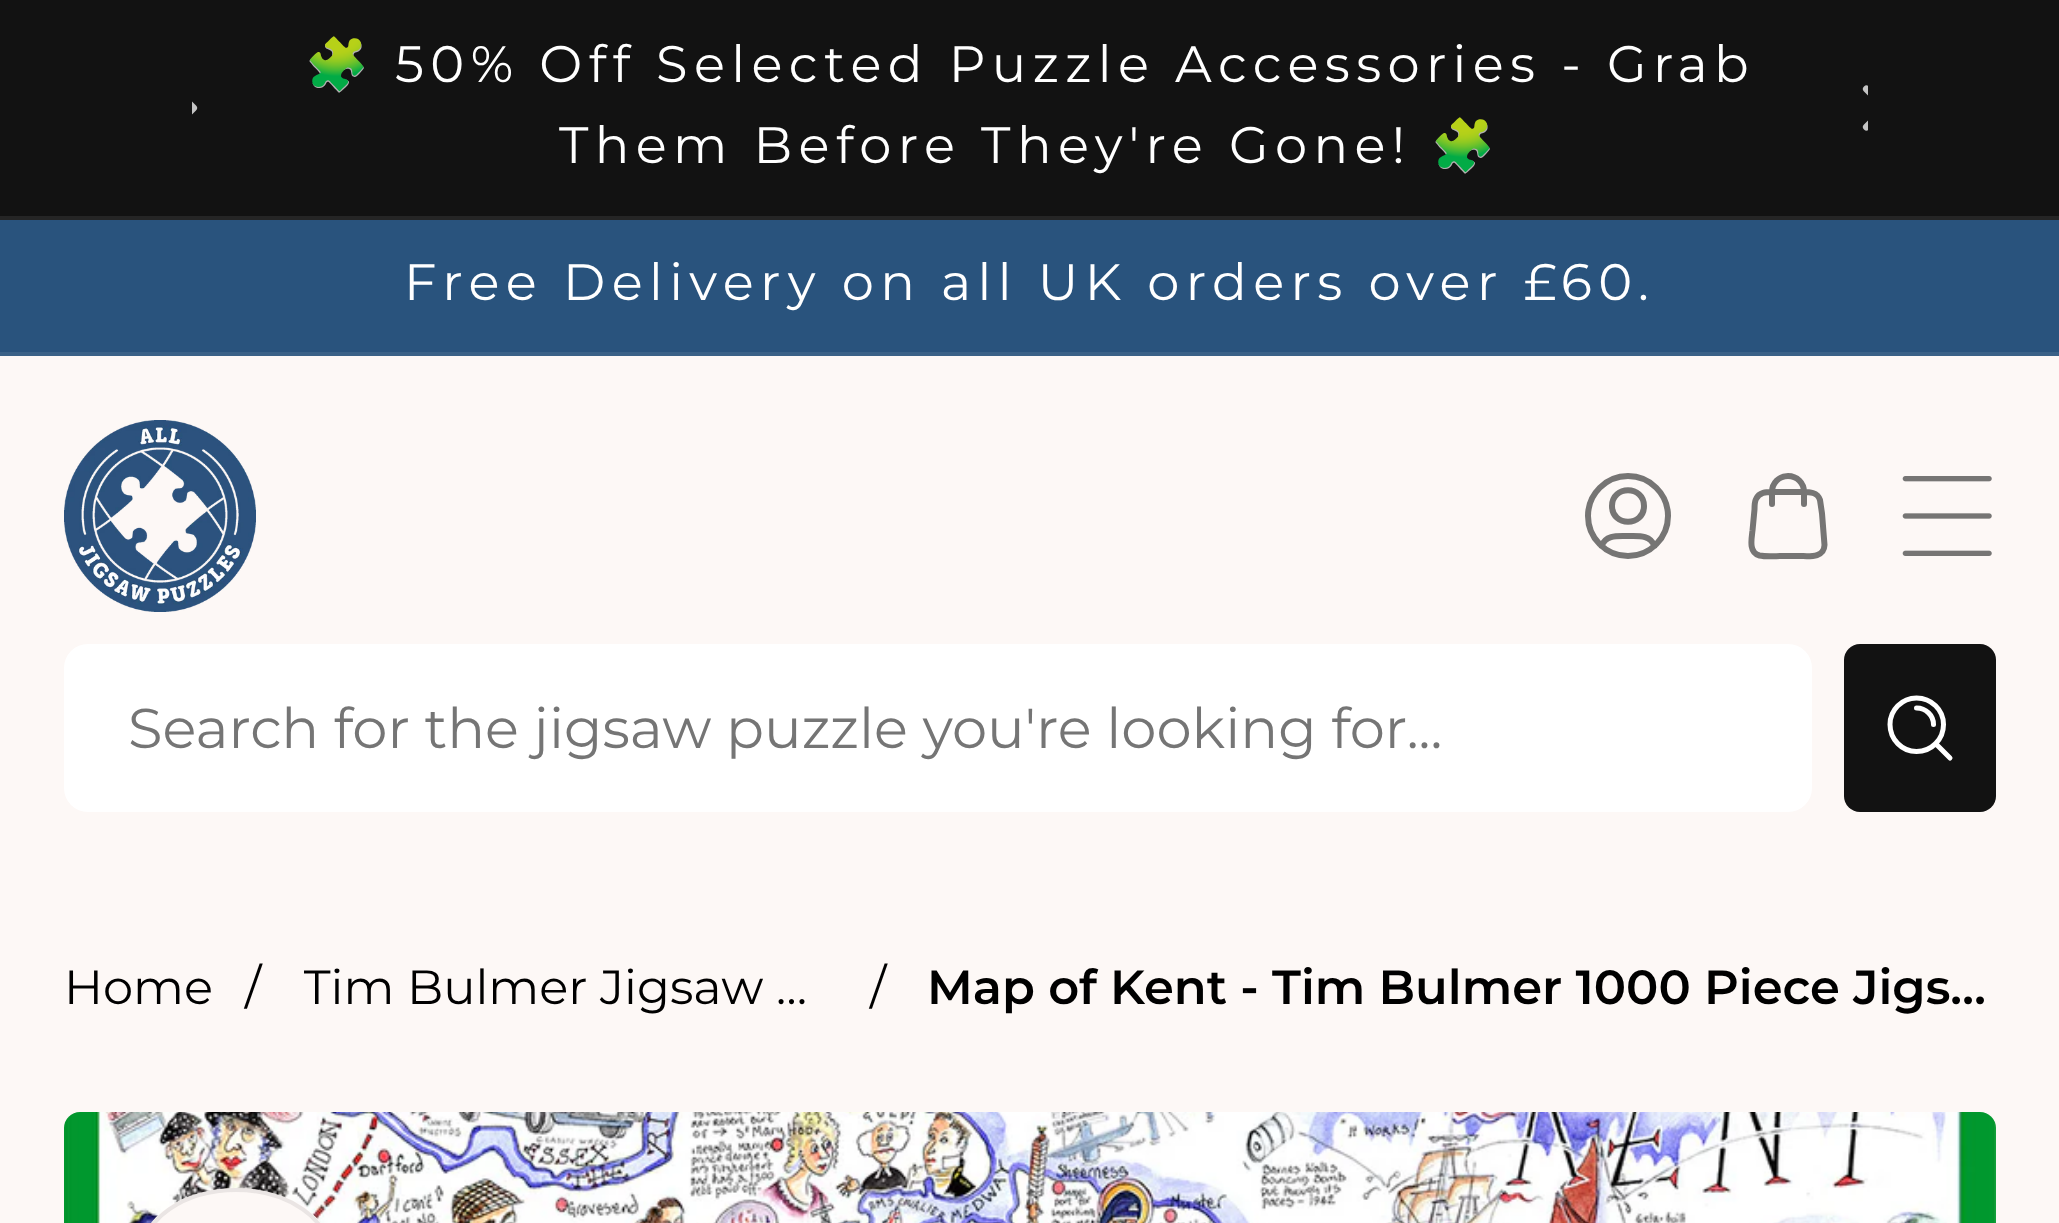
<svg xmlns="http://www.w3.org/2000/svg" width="2059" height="1223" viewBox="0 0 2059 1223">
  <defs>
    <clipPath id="clip1"><rect x="192" y="68" width="32" height="80"/></clipPath>
    <clipPath id="clip2"><rect x="1836" y="68" width="32" height="80"/></clipPath>
    <clipPath id="clip3"><rect x="304" y="956" width="532" height="60"/></clipPath>
  </defs>
  <rect width="100%" height="100%" fill="#fdf8f6"/>
  <rect x="0" y="0" width="2059" height="216" fill="#121212"/>
  <rect x="0" y="216" width="2059" height="4" fill="#252525"/>
  <g clip-path="url(#clip1)">
    <path d="M174.5 127L193.5 108L174.5 89" fill="none" stroke="#c4c4c4" stroke-width="7.1" stroke-linecap="round" stroke-linejoin="round"/>
  </g>
  <text x="305" y="82" font-family="Noto Color Emoji" font-size="51.2" letter-spacing="6.4" fill="#ffffff">🧩</text>
  <text x="395" y="82" font-family="Montserrat" font-size="51.2" letter-spacing="6.4" fill="#ffffff">50% Off Selected Puzzle Accessories - Grab</text>
  <text x="559" y="163" font-family="Montserrat" font-size="51.2" letter-spacing="6.4" fill="#ffffff">Them Before They're Gone!</text>
  <text x="1431" y="163" font-family="Noto Color Emoji" font-size="51.2" letter-spacing="6.4" fill="#ffffff">🧩</text>
  <g clip-path="url(#clip2)">
    <path d="M1866.5 127L1885.5 108L1866.5 89" fill="none" stroke="#c4c4c4" stroke-width="7.1" stroke-linecap="round" stroke-linejoin="round"/>
  </g>
  <rect x="0" y="220" width="2059" height="132" fill="#29537d"/>
  <rect x="0" y="352" width="2059" height="4" fill="#3a6187"/>
  <text x="404" y="300" font-family="Montserrat" font-size="51.2" letter-spacing="6.4" fill="#ffffff">Free Delivery on all UK orders over £60.</text>
  <image x="64" y="420" width="192" height="192" href="img1.png"/>
  <path d="M1601.5 546C1606 534.5 1617.5 536 1628 536C1638.5 536 1650 534.5 1654.5 546M1644 506C1644 527 1612 527 1612 506C1612 485 1644 485 1644 506ZM1668 516C1668 538 1650 556 1628 556C1606 556 1588 538 1588 516C1588 494 1606 476 1628 476C1650 476 1668 494 1668 516Z" fill="none" stroke="#767574" stroke-width="6" stroke-linecap="round" stroke-linejoin="round"/>
  <path d="M1804 504V492C1804 483 1797 476 1788 476C1779 476 1772 483 1772 492V504M1754.5 509.5L1752.5 530.5C1751.5 539 1748.5 552.5 1759.5 555.5C1766.5 557 1775.5 556 1782.5 556H1799.5C1808.5 556 1824 558.5 1824.5 545L1822 513.5L1820 500C1817.5 492 1809.5 492 1802.5 492H1773.5C1767 492 1759.5 491.5 1756 499C1754.5 502 1754.5 506 1754.5 509.5Z" fill="none" stroke="#767574" stroke-width="6" stroke-linecap="round" stroke-linejoin="round"/>
  <image x="1902" y="476" width="90" height="80" href="img2.png"/>
  <rect x="64" y="644" width="1748" height="168" rx="24" fill="#ffffff"/>
  <text x="128" y="748" font-family="Montserrat" font-size="56" fill="#757575">Search for the jigsaw puzzle you're looking for...</text>
  <rect x="1844" y="644" width="152" height="168" rx="16" fill="#121212"/>
  <path d="M1950 758L1935.5 743.5M1916.5 708C1926 708 1933.5 715.5 1933.5 724.5M1943.5 724.5C1943.5 739.5 1931.5 751.5 1916.5 751.5C1902 751.5 1890 739.5 1890 724.5C1890 710 1902 698 1916.5 698C1931.5 698 1943.5 710 1943.5 724.5Z" fill="none" stroke="#ffffff" stroke-width="5" stroke-linecap="round" stroke-linejoin="round"/>
  <text x="64" y="1004" font-family="Montserrat" font-size="48" fill="#000000">Home</text>
  <text x="245" y="1004" font-family="Montserrat" font-size="48" fill="#000000">/</text>
  <g clip-path="url(#clip3)">
    <text x="303" y="1004" font-family="Montserrat" font-size="48" fill="#000000">Tim Bulmer Jigsaw …</text>
  </g>
  <text x="870" y="1004" font-family="Montserrat" font-size="48" fill="#000000">/</text>
  <text x="927" y="1004" font-family="Montserrat" font-size="48" font-weight="600" fill="#000000">Map of Kent - Tim Bulmer 1000 Piece Jigs…</text>
  <image x="64" y="1112" width="1932" height="111" href="img3.png"/>
  <rect x="140" y="1188" width="192" height="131" rx="96" fill="#fdf8f6"/>
  <rect x="142" y="1190" width="188" height="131" rx="94" fill="none" stroke="#434241" stroke-opacity="0.1" stroke-width="4"/>
</svg>
